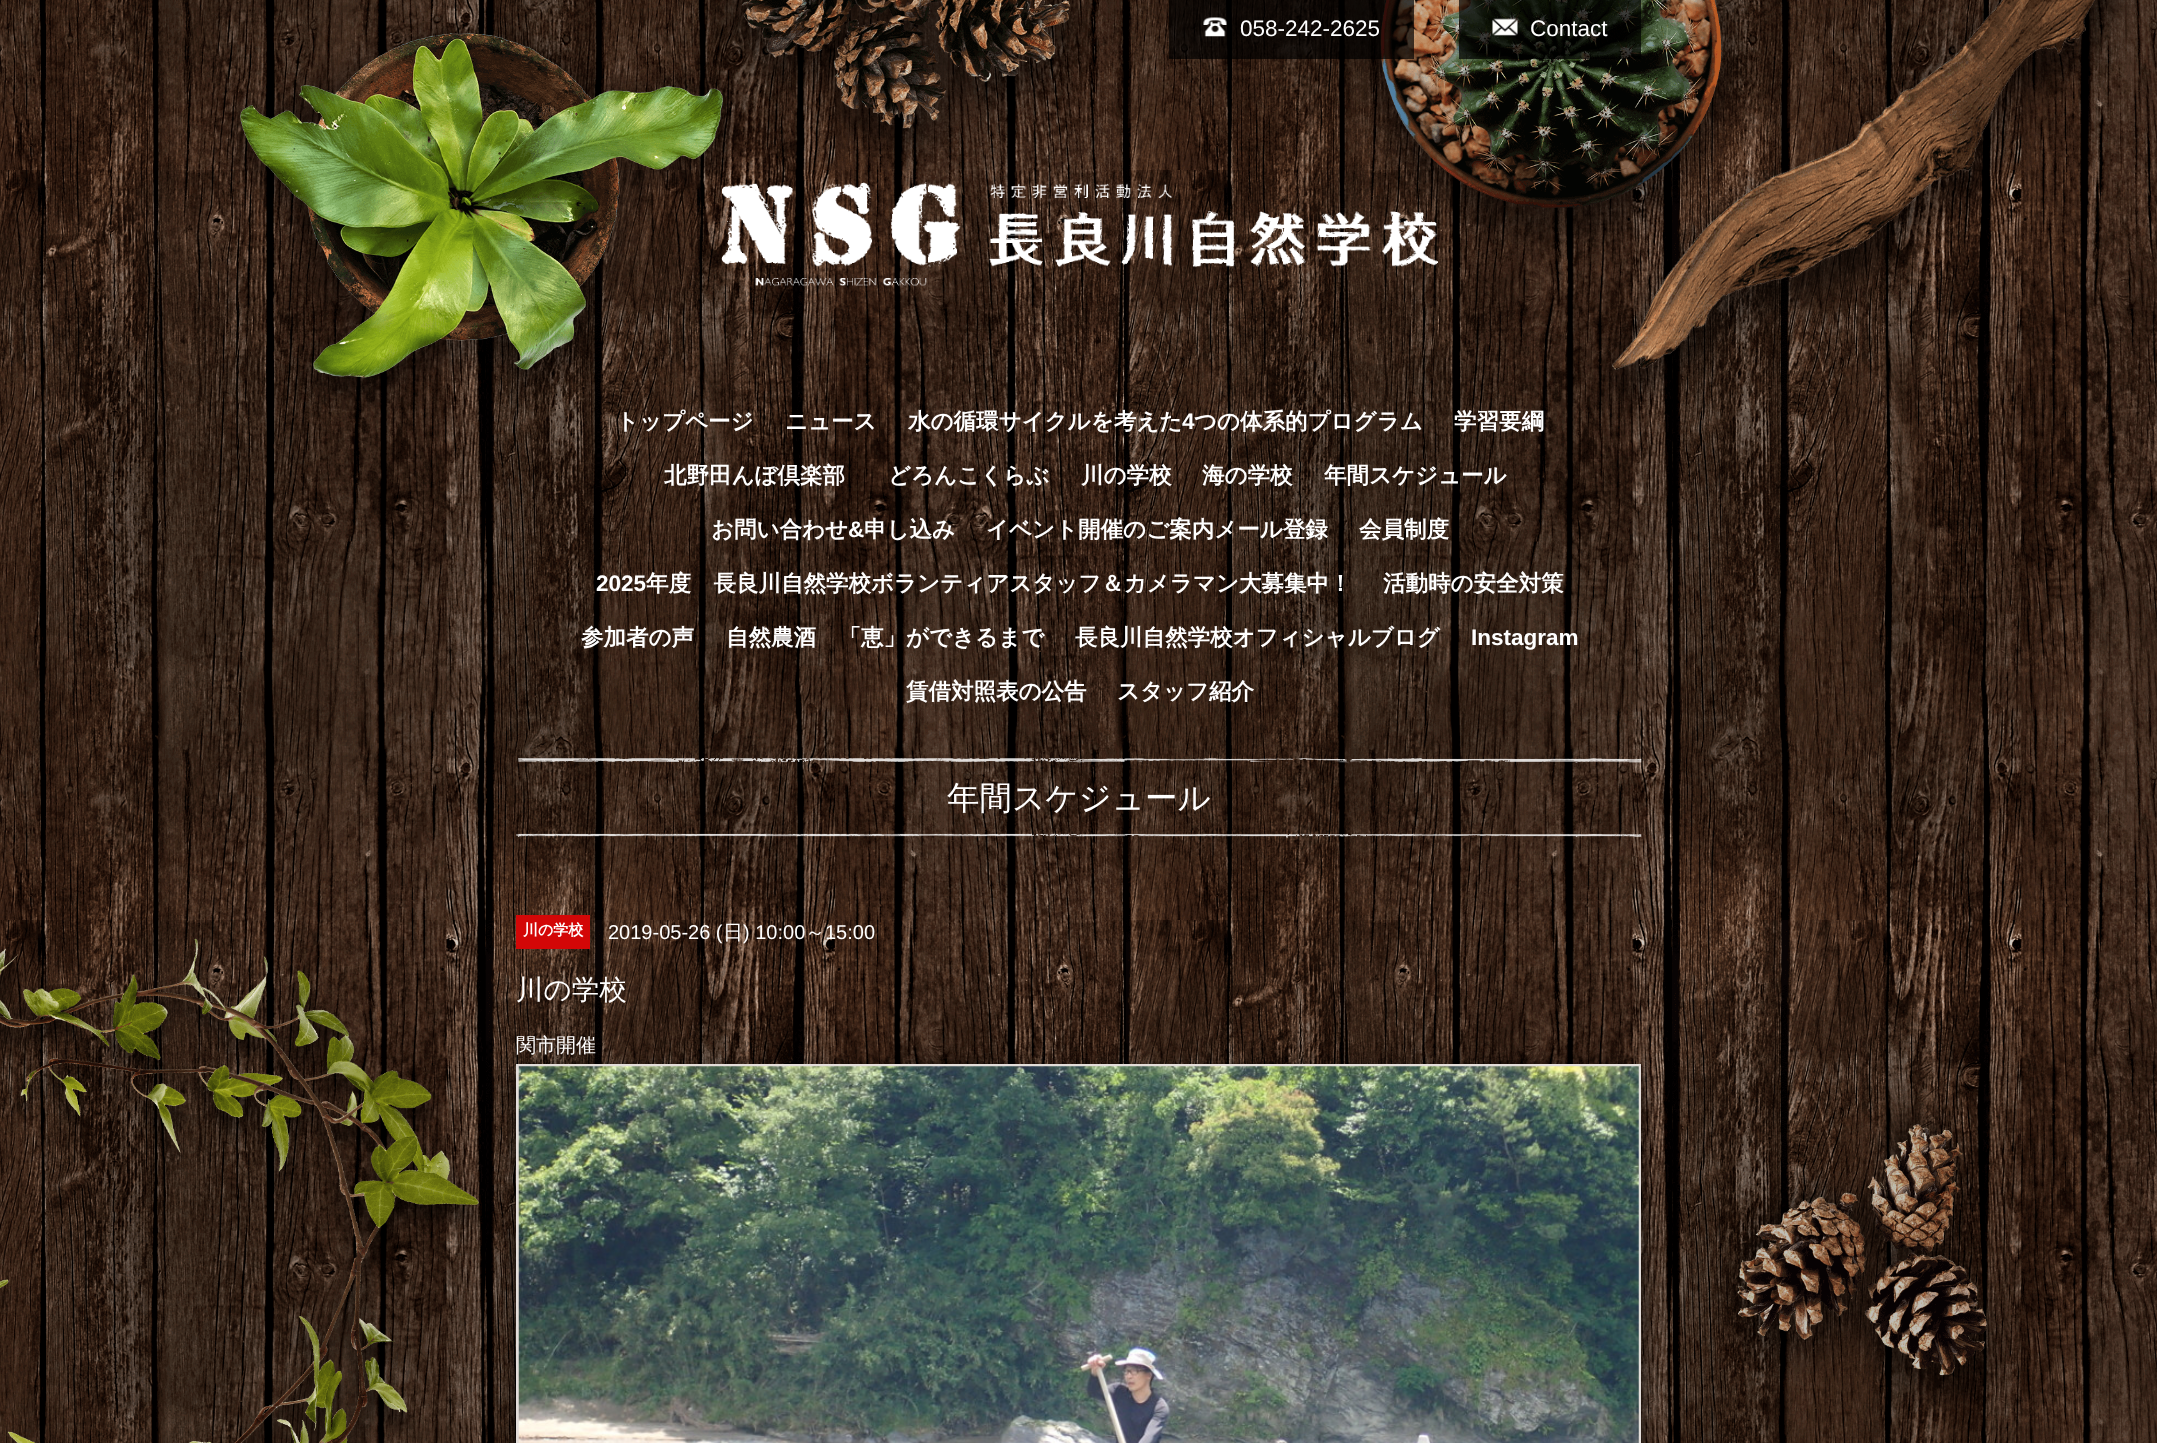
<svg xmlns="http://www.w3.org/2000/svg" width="2157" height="1443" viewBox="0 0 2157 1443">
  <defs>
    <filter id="blur1" x="-50%" y="-200%" width="200%" height="500%"><feGaussianBlur stdDeviation="9"/></filter>
  </defs>
  <rect width="100%" height="100%" fill="#ffffff"/>
  <image x="0" y="0" width="2157" height="1443" href="img1.png"/>
  <image x="215" y="0" width="1927" height="419" href="img2.png"/>
  <rect x="1169" y="0" width="245" height="59" fill="#000000" fill-opacity="0.7"/>
  <image x="1203" y="17" width="24" height="20" href="img3.png"/>
  <text x="1240" y="36" font-family="Liberation Sans" font-size="22.5" fill="#ffffff">058-242-2625</text>
  <rect x="1459" y="0" width="182" height="59" fill="#000000" fill-opacity="0.7"/>
  <image x="1492" y="18" width="26" height="18" href="img4.png"/>
  <text x="1530" y="36" font-family="Liberation Sans" font-size="22.5" fill="#ffffff">Contact</text>
  <image x="721" y="182" width="717" height="104" href="img5.png"/>
  <text x="616" y="429" font-family="WenQuanYi Zen Hei" font-size="22.5" font-weight="bold" fill="#ffffff">トップページ</text>
  <text x="785" y="429" font-family="WenQuanYi Zen Hei" font-size="22.5" font-weight="bold" fill="#ffffff">ニュース</text>
  <text x="908" y="429" font-family="WenQuanYi Zen Hei" font-size="22.5" font-weight="bold" fill="#ffffff">水の循環サイクルを考えた</text>
  <text x="1182" y="429" font-family="Liberation Sans" font-size="22.5" font-weight="bold" fill="#ffffff">4</text>
  <text x="1194" y="429" font-family="WenQuanYi Zen Hei" font-size="22.5" font-weight="bold" fill="#ffffff">つの体系的プログラム</text>
  <text x="1454" y="429" font-family="WenQuanYi Zen Hei" font-size="22.5" font-weight="bold" fill="#ffffff">学習要綱</text>
  <text x="664" y="483" font-family="WenQuanYi Zen Hei" font-size="22.5" font-weight="bold" fill="#ffffff">北野田んぼ倶楽部</text>
  <text x="888" y="483" font-family="WenQuanYi Zen Hei" font-size="22.5" font-weight="bold" fill="#ffffff">どろんこくらぶ</text>
  <text x="1081" y="483" font-family="WenQuanYi Zen Hei" font-size="22.5" font-weight="bold" fill="#ffffff">川の学校</text>
  <text x="1202" y="483" font-family="WenQuanYi Zen Hei" font-size="22.5" font-weight="bold" fill="#ffffff">海の学校</text>
  <text x="1324" y="483" font-family="WenQuanYi Zen Hei" font-size="22.5" font-weight="bold" fill="#ffffff">年間スケジュール</text>
  <text x="711" y="537" font-family="WenQuanYi Zen Hei" font-size="22.5" font-weight="bold" fill="#ffffff">お問い合わせ</text>
  <text x="848" y="537" font-family="Liberation Sans" font-size="22.5" font-weight="bold" fill="#ffffff">&amp;</text>
  <text x="864" y="537" font-family="WenQuanYi Zen Hei" font-size="22.5" font-weight="bold" fill="#ffffff">申し込み</text>
  <text x="986" y="537" font-family="WenQuanYi Zen Hei" font-size="22.5" font-weight="bold" fill="#ffffff">イベント開催のご案内メール登録</text>
  <text x="1359" y="537" font-family="WenQuanYi Zen Hei" font-size="22.5" font-weight="bold" fill="#ffffff">会員制度</text>
  <text x="596" y="591" font-family="Liberation Sans" font-size="22.5" font-weight="bold" fill="#ffffff">2025</text>
  <text x="646" y="591" font-family="WenQuanYi Zen Hei" font-size="22.5" font-weight="bold" fill="#ffffff">年度　長良川自然学校ボランティアスタッフ＆カメラマン大募集中！</text>
  <text x="1383" y="591" font-family="WenQuanYi Zen Hei" font-size="22.5" font-weight="bold" fill="#ffffff">活動時の安全対策</text>
  <text x="581" y="645" font-family="WenQuanYi Zen Hei" font-size="22.5" font-weight="bold" fill="#ffffff">参加者の声</text>
  <text x="726" y="645" font-family="WenQuanYi Zen Hei" font-size="22.5" font-weight="bold" fill="#ffffff">自然農酒　「恵」ができるまで</text>
  <text x="1075" y="645" font-family="WenQuanYi Zen Hei" font-size="22.5" font-weight="bold" fill="#ffffff">長良川自然学校オフィシャルブログ</text>
  <text x="1471" y="645" font-family="Liberation Sans" font-size="22.5" font-weight="bold" fill="#ffffff">Instagram</text>
  <text x="906" y="699" font-family="WenQuanYi Zen Hei" font-size="22.5" font-weight="bold" fill="#ffffff">賃借対照表の公告</text>
  <text x="1117" y="699" font-family="WenQuanYi Zen Hei" font-size="22.5" font-weight="bold" fill="#ffffff">スタッフ紹介</text>
  <image x="0" y="938" width="2014" height="505" href="img6.png"/>
  <image x="517" y="756" width="1125" height="8" href="img7.png"/>
  <text x="947" y="809" font-family="WenQuanYi Zen Hei" font-size="32.5" font-weight="500" fill="#ffffff">年間スケジュール</text>
  <image x="516" y="832" width="1126" height="6" href="img8.png"/>
  <rect x="516" y="915" width="74" height="34" fill="#d30707"/>
  <text x="523" y="935" font-family="WenQuanYi Zen Hei" font-size="15" font-weight="bold" fill="#ffffff">川の学校</text>
  <text x="608" y="939" font-family="Liberation Sans" font-size="20" fill="#ffffff">2019-05-26 (</text>
  <text x="723" y="939" font-family="WenQuanYi Zen Hei" font-size="20" font-weight="500" fill="#ffffff">日</text>
  <text x="743" y="939" font-family="Liberation Sans" font-size="20" fill="#ffffff">) 10:00</text>
  <text x="805" y="939" font-family="WenQuanYi Zen Hei" font-size="20" font-weight="500" fill="#ffffff">～</text>
  <text x="825" y="939" font-family="Liberation Sans" font-size="20" fill="#ffffff">15:00</text>
  <text x="516" y="999" font-family="WenQuanYi Zen Hei" font-size="27.5" font-weight="500" fill="#ffffff">川の学校</text>
  <text x="516" y="1052" font-family="WenQuanYi Zen Hei" font-size="20" font-weight="500" fill="#ffffff">関市開催</text>
  <rect x="519" y="1071" width="1120" height="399" fill="#030303" filter="url(#blur1)"/>
  <rect x="517.5" y="1065.5" width="1122" height="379" fill="none" stroke="#e3ddd9" stroke-width="3"/>
  <image x="518" y="1066" width="1121" height="377" href="img9.png"/>
</svg>
